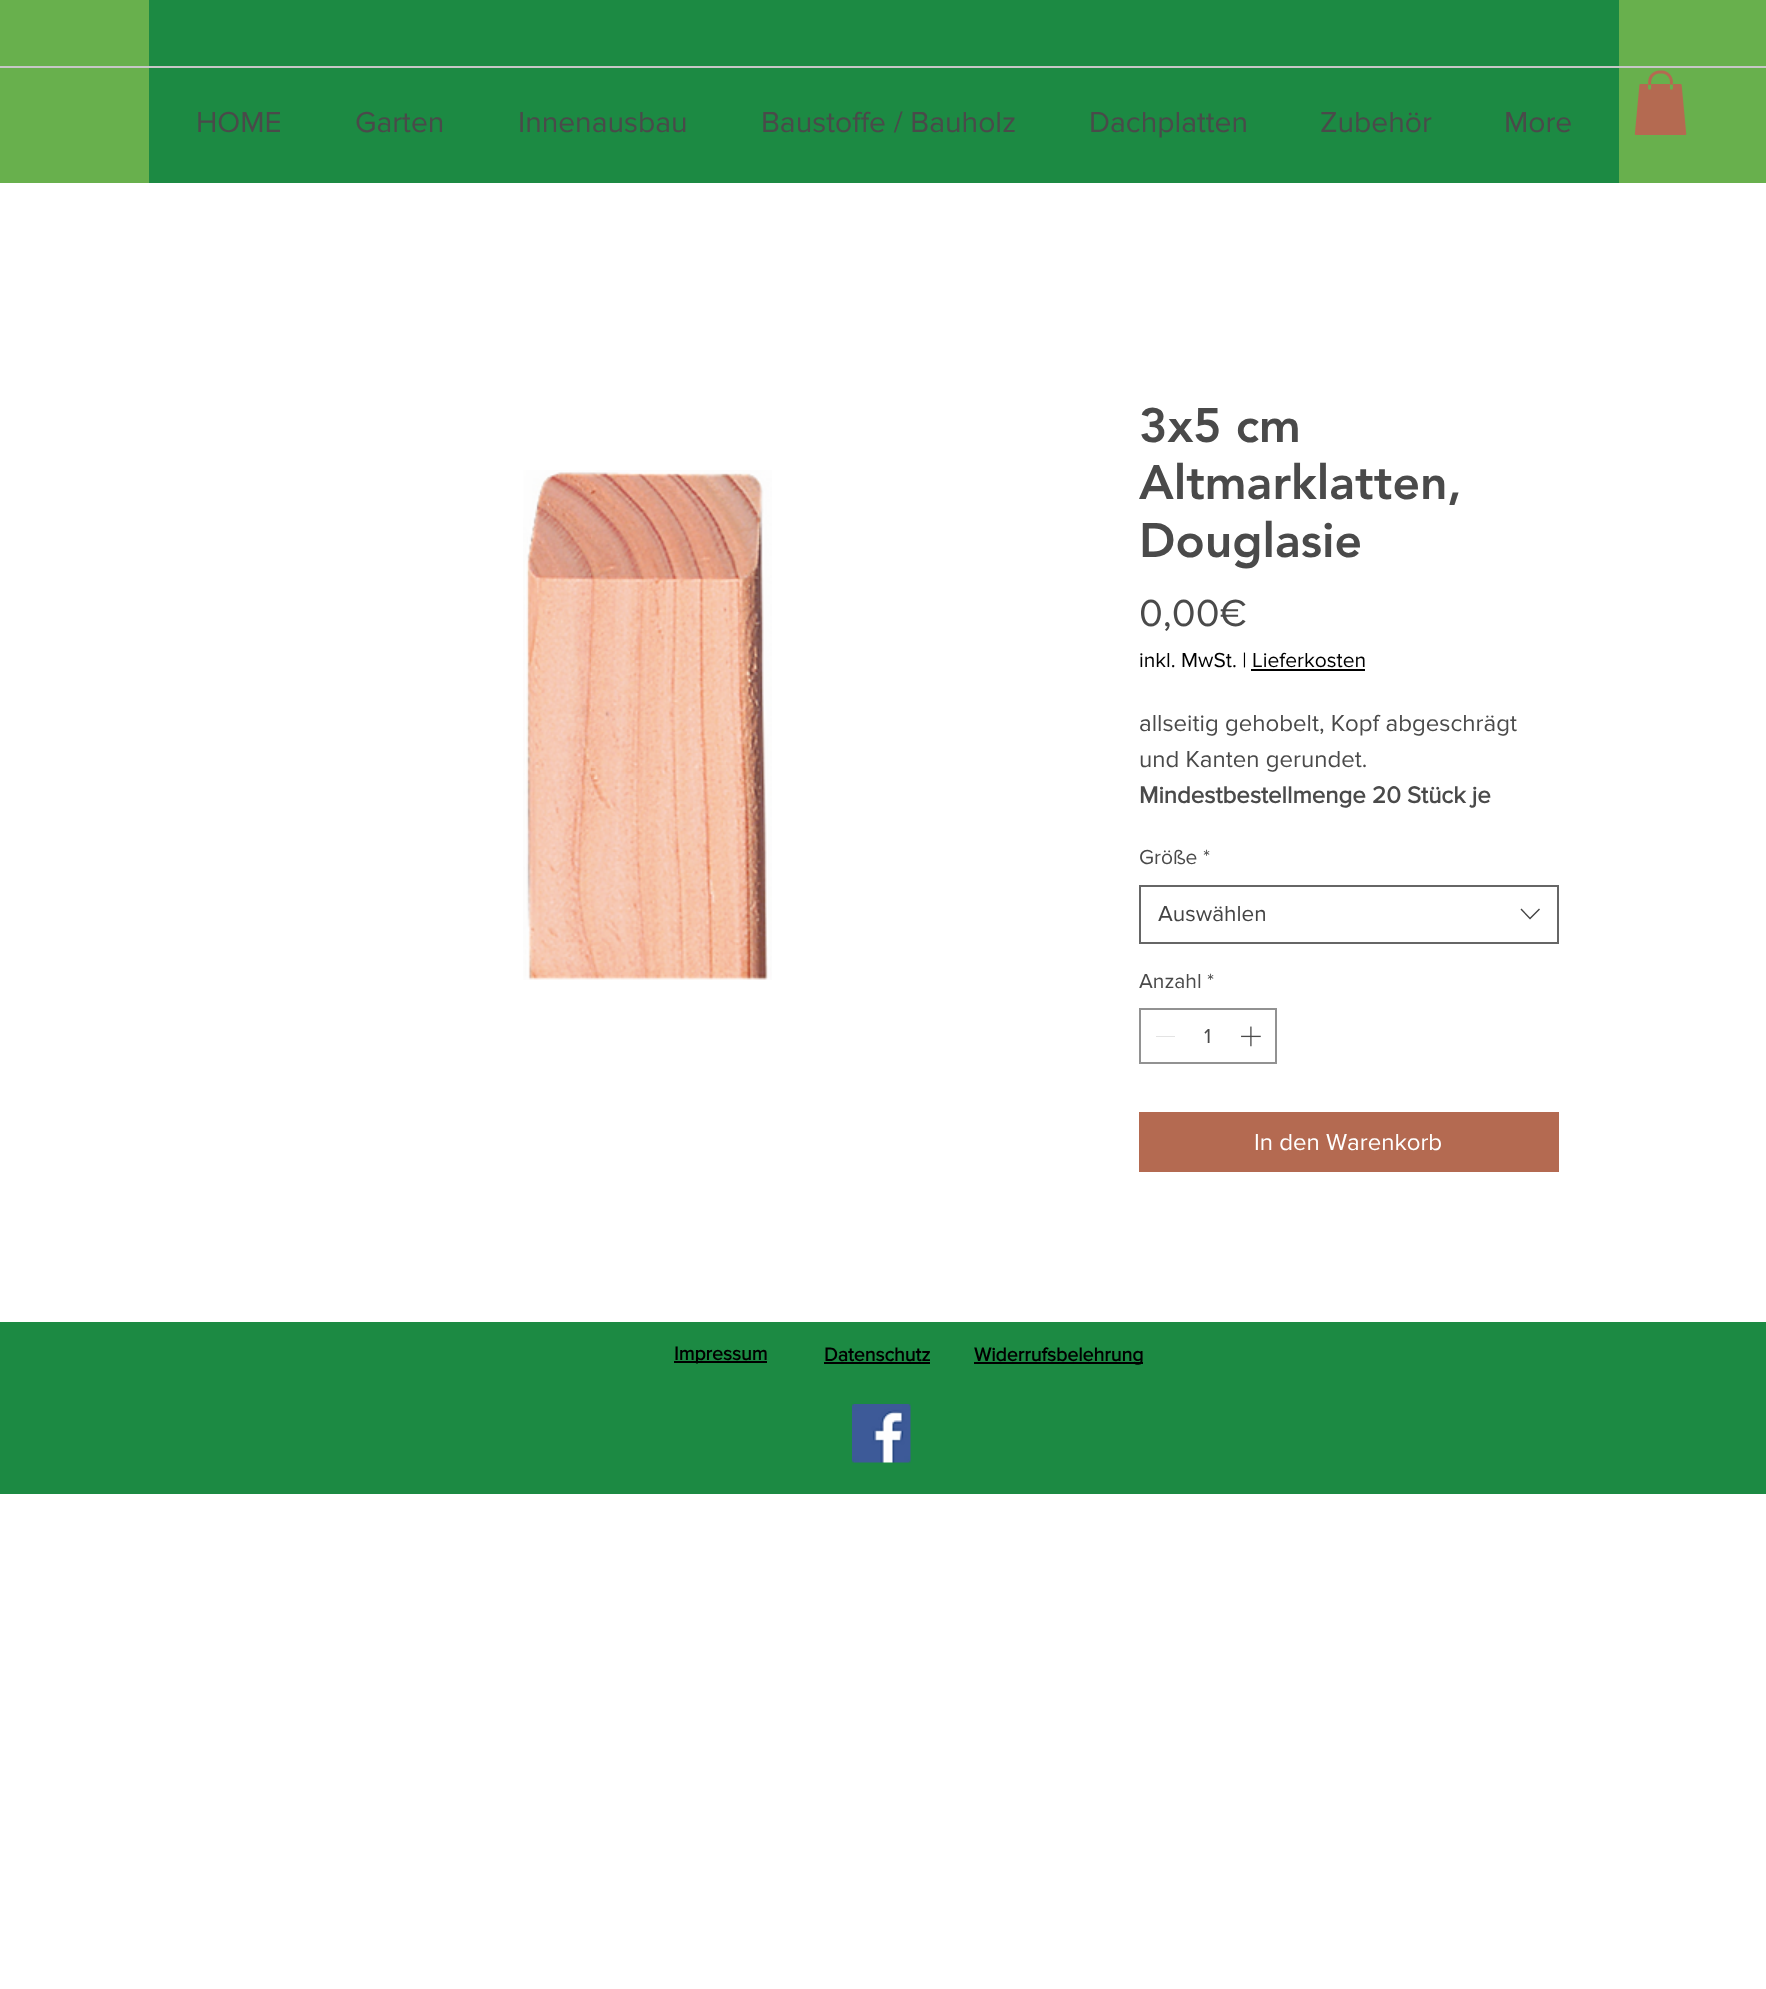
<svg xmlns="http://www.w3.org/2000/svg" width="1766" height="1989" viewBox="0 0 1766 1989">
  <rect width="100%" height="100%" fill="#ffffff"/>
  <rect x="0" y="0" width="1766" height="183" fill="#68b04d"/>
  <rect x="149" y="0" width="1470" height="183" fill="#1c8a43"/>
  <rect x="0" y="66" width="1766" height="2" fill="#c7c7c7"/>
  <text x="196" y="132" font-family="'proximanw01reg'" font-size="30" fill="#4a4a4a">HOME</text>
  <text x="355" y="132" font-family="'proximanw01reg'" font-size="30" fill="#4a4a4a">Garten</text>
  <text x="518" y="132" font-family="'proximanw01reg'" font-size="30" fill="#4a4a4a">Innenausbau</text>
  <text x="761" y="132" font-family="'proximanw01reg'" font-size="30" fill="#4a4a4a">Baustoffe / Bauholz</text>
  <text x="1089" y="132" font-family="'proximanw01reg'" font-size="30" fill="#4a4a4a">Dachplatten</text>
  <text x="1320" y="132" font-family="'proximanw01reg'" font-size="30" fill="#4a4a4a">Zubehör</text>
  <text x="1504" y="132" font-family="'proximanw01reg'" font-size="30" fill="#4a4a4a">More</text>
  <image x="1634" y="70" width="53" height="65" href="img1.png"/>
  <image x="523" y="470" width="249" height="510" href="img2.png"/>
  <text x="1139" y="442" font-family="'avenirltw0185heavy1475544'" font-size="48" font-weight="900" fill="#4a4a4a">3x5 cm</text>
  <text x="1139" y="499" font-family="'avenirltw0185heavy1475544'" font-size="48" font-weight="900" fill="#4a4a4a">Altmarklatten,</text>
  <text x="1139" y="557" font-family="'avenirltw0185heavy1475544'" font-size="48" font-weight="900" fill="#4a4a4a">Douglasie</text>
  <text x="1139" y="626" font-family="'proximanw01reg'" font-size="39" fill="#4a4a4a">0,00€</text>
  <text x="1139" y="667" font-family="'proximanw01reg'" font-size="21" fill="#000000">inkl. MwSt. | Lieferkosten</text>
  <rect x="1251" y="669" width="114" height="2" fill="#000000"/>
  <text x="1139" y="731" font-family="'proximanw01reg'" font-size="24" fill="#4a4a4a">allseitig gehobelt, Kopf abgeschrägt</text>
  <text x="1139" y="767" font-family="'proximanw01reg'" font-size="24" fill="#4a4a4a">und Kanten gerundet.</text>
  <text x="1139" y="803" font-family="'proximanw01reg'" font-size="24" font-weight="bold" fill="#4a4a4a">Mindestbestellmenge 20 Stück je</text>
  <text x="1139" y="864" font-family="'proximanw01reg'" font-size="21" fill="#4a4a4a">Größe</text>
  <text x="1203" y="864" font-family="'proximanw01reg'" font-size="21" fill="#4a4a4a">*</text>
  <rect x="1140" y="886" width="418" height="57" fill="none" stroke="#666666" stroke-width="2"/>
  <text x="1158" y="921" font-family="'proximanw01reg'" font-size="22.5" fill="#444444">Auswählen</text>
  <path d="M1539 908.5L1540 909.5L1530 919.5L1520.5 909.5L1521.5 908.5L1530 917.5Z" fill="#444444" fill-rule="evenodd"/>
  <text x="1139" y="988" font-family="'proximanw01reg'" font-size="21" fill="#4a4a4a">Anzahl</text>
  <text x="1207" y="988" font-family="'proximanw01reg'" font-size="21" fill="#4a4a4a">*</text>
  <rect x="1140" y="1009" width="136" height="54" fill="none" stroke="#929292" stroke-width="2"/>
  <rect x="1156" y="1036" width="19" height="1" fill="#e3e3e3"/>
  <text x="1204" y="1043" font-family="'proximanw01reg'" font-size="21" fill="#4a4a4a">1</text>
  <image x="1241" y="1026" width="20" height="21" href="img3.png"/>
  <rect x="1139" y="1112" width="420" height="60" fill="#b46a51"/>
  <text x="1254" y="1150" font-family="'proximanw01reg'" font-size="24" fill="#ffffff">In den Warenkorb</text>
  <rect x="0" y="1322" width="1766" height="172" fill="#1c8a43"/>
  <rect x="674" y="1361" width="93" height="2" fill="#000000"/>
  <text x="674" y="1360" font-family="'proximanw01reg'" font-size="19.5" font-weight="bold" fill="#000000">Impressum</text>
  <text x="824" y="1361" font-family="'proximanw01reg'" font-size="19.5" font-weight="bold" fill="#000000">Datenschutz</text>
  <rect x="824" y="1362" width="106" height="2" fill="#000000"/>
  <rect x="974" y="1362" width="169" height="2" fill="#000000"/>
  <text x="974" y="1361" font-family="'proximanw01reg'" font-size="19.5" font-weight="bold" fill="#000000">Widerrufsbelehrung</text>
  <image x="852" y="1404" width="59" height="59" href="img4.png"/>
</svg>
